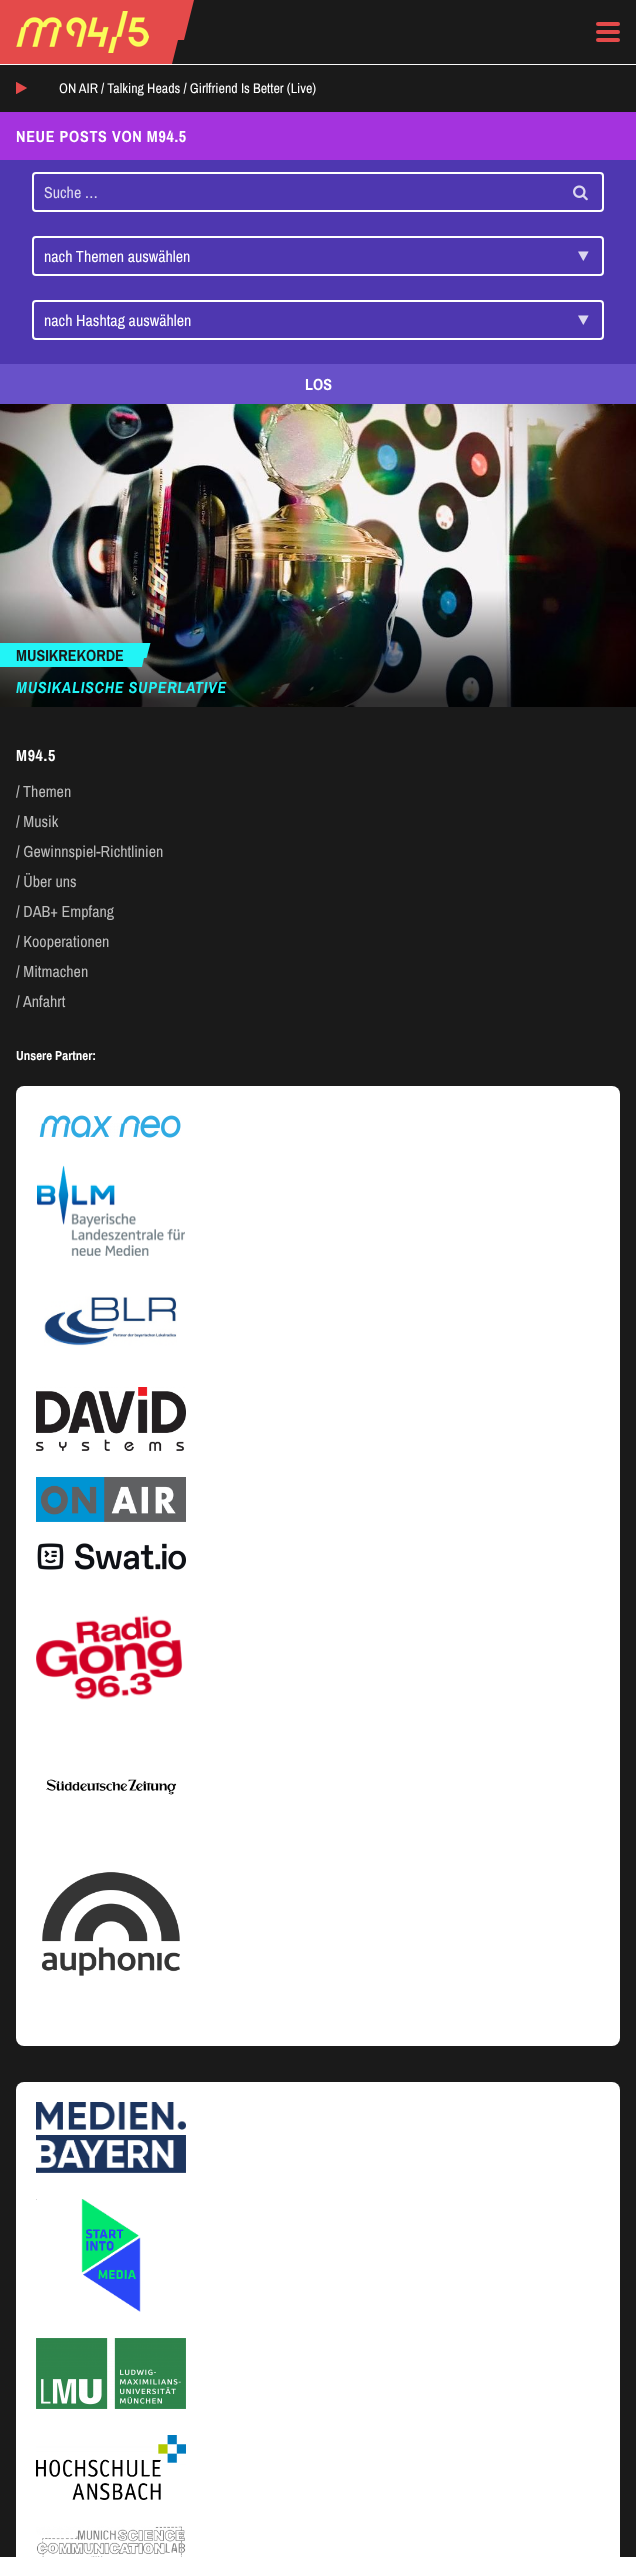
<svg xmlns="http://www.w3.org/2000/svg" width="636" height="2557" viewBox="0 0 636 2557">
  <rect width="100%" height="100%" fill="#a433de"/>
  <rect x="172" y="0" width="464" height="64" fill="#1a1a1a"/>
  <rect x="0" y="64" width="636" height="1" fill="#fafafa"/>
  <rect x="0" y="0" width="164" height="64" fill="#e44a4a"/>
  <image x="16" y="11" width="133" height="42" href="img1.png"/>
  <path d="M187 0H194L184 40H178L172 64H164V0Z" fill="#e44a4a" fill-rule="evenodd"/>
  <rect x="596" y="30" width="24" height="4" rx="2" fill="#e44a4a"/>
  <rect x="596" y="22" width="24" height="4" rx="2" fill="#e44a4a"/>
  <rect x="596" y="38" width="24" height="4" rx="2" fill="#e44a4a"/>
  <rect x="0" y="65" width="636" height="47" fill="#1a1a1a"/>
  <image x="16" y="82" width="11" height="12" href="img2.png"/>
  <text x="59" y="93" font-family="Archivo Narrow" font-size="14" fill="#ffffff">ON AIR / Talking Heads / Girlfriend Is Better (Live)</text>
  <text x="16" y="142" font-family="Archivo Narrow" font-size="16" font-weight="bold" letter-spacing="0.7" fill="#ffffff">NEUE POSTS VON M94.5</text>
  <rect x="0" y="160" width="636" height="204" fill="#4e37b0"/>
  <rect x="33" y="173" width="570" height="38" rx="3" fill="none" stroke="#ffffff" stroke-width="2"/>
  <text x="44" y="198" font-family="Archivo Narrow" font-size="16" fill="#dcd7ef">Suche …</text>
  <image x="573" y="185" width="15" height="16" href="img3.png"/>
  <rect x="33" y="237" width="570" height="38" rx="3" fill="none" stroke="#ffffff" stroke-width="2"/>
  <text x="44" y="262" font-family="Archivo Narrow" font-size="16" fill="#ffffff">nach Themen auswählen</text>
  <image x="578" y="251" width="11" height="10" href="img4.png"/>
  <rect x="33" y="301" width="570" height="38" rx="3" fill="none" stroke="#ffffff" stroke-width="2"/>
  <text x="44" y="326" font-family="Archivo Narrow" font-size="16" fill="#ffffff">nach Hashtag auswählen</text>
  <image x="578" y="315" width="11" height="10" href="img4.png"/>
  <rect x="0" y="364" width="636" height="40" fill="#6851c9"/>
  <text x="305" y="390" font-family="Archivo Narrow" font-size="16" font-weight="bold" fill="#ffffff">LOS</text>
  <image x="0" y="404" width="636" height="303" href="img5.png"/>
  <rect x="0" y="643" width="139" height="24" fill="#22f4f6"/>
  <text x="16" y="661" font-family="Archivo Narrow" font-size="16" font-weight="bold" fill="#1a1a1a">MUSIKREKORDE</text>
  <path d="M147.5 643H150.5L146.5 658H144L142 667H139V643Z" fill="#22f4f6" fill-rule="evenodd"/>
  <text x="16" y="693" font-family="Archivo Narrow" font-size="16" font-weight="bold" font-style="italic" letter-spacing="0.7" fill="#22f4f6">MUSIKALISCHE SUPERLATIVE</text>
  <rect x="0" y="707" width="636" height="1850" fill="#1a1a1a"/>
  <text x="16" y="761" font-family="Archivo Narrow" font-size="16" font-weight="bold" letter-spacing="0.7" fill="#ffffff">M94.5</text>
  <text x="16" y="797" font-family="Archivo Narrow" font-size="16" fill="#bbbbbb">/ Themen</text>
  <text x="16" y="827" font-family="Archivo Narrow" font-size="16" fill="#bbbbbb">/ Musik</text>
  <text x="16" y="857" font-family="Archivo Narrow" font-size="16" fill="#bbbbbb">/ Gewinnspiel-Richtlinien</text>
  <text x="16" y="887" font-family="Archivo Narrow" font-size="16" fill="#bbbbbb">/ Über uns</text>
  <text x="16" y="917" font-family="Archivo Narrow" font-size="16" fill="#bbbbbb">/ DAB+ Empfang</text>
  <text x="16" y="947" font-family="Archivo Narrow" font-size="16" fill="#bbbbbb">/ Kooperationen</text>
  <text x="16" y="977" font-family="Archivo Narrow" font-size="16" fill="#bbbbbb">/ Mitmachen</text>
  <text x="16" y="1007" font-family="Archivo Narrow" font-size="16" fill="#bbbbbb">/</text>
  <text x="23" y="1007" font-family="Archivo Narrow" font-size="16" fill="#bbbbbb">Anfahrt</text>
  <text x="16" y="1060" font-family="Archivo Narrow" font-size="13" font-weight="bold" fill="#ffffff">Unsere Partner:</text>
  <rect x="16" y="1086" width="604" height="960" rx="8" fill="#ffffff"/>
  <image x="39" y="1115" width="142" height="23" href="img6.png"/>
  <image x="37" y="1165" width="148" height="91" href="img7.png"/>
  <image x="44" y="1296" width="133" height="50" href="img8.png"/>
  <image x="36" y="1387" width="150" height="64" href="img9.png"/>
  <image x="36" y="1477" width="150" height="45" href="img10.png"/>
  <image x="37" y="1543" width="149" height="27" href="img11.png"/>
  <image x="36" y="1615" width="147" height="85" href="img12.png"/>
  <image x="46" y="1779" width="131" height="16" href="img13.png"/>
  <image x="41" y="1872" width="139" height="104" href="img14.png"/>
  <rect x="16" y="2082" width="604" height="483" rx="8" fill="#ffffff"/>
  <image x="36" y="2102" width="150" height="71" href="img15.png"/>
  <image x="36" y="2199" width="105" height="113" href="img16.png"/>
  <image x="36" y="2338" width="150" height="71" href="img17.png"/>
  <image x="36" y="2435" width="150" height="65" href="img18.png"/>
  <image x="36" y="2526" width="150" height="31" href="img19.png"/>
</svg>
